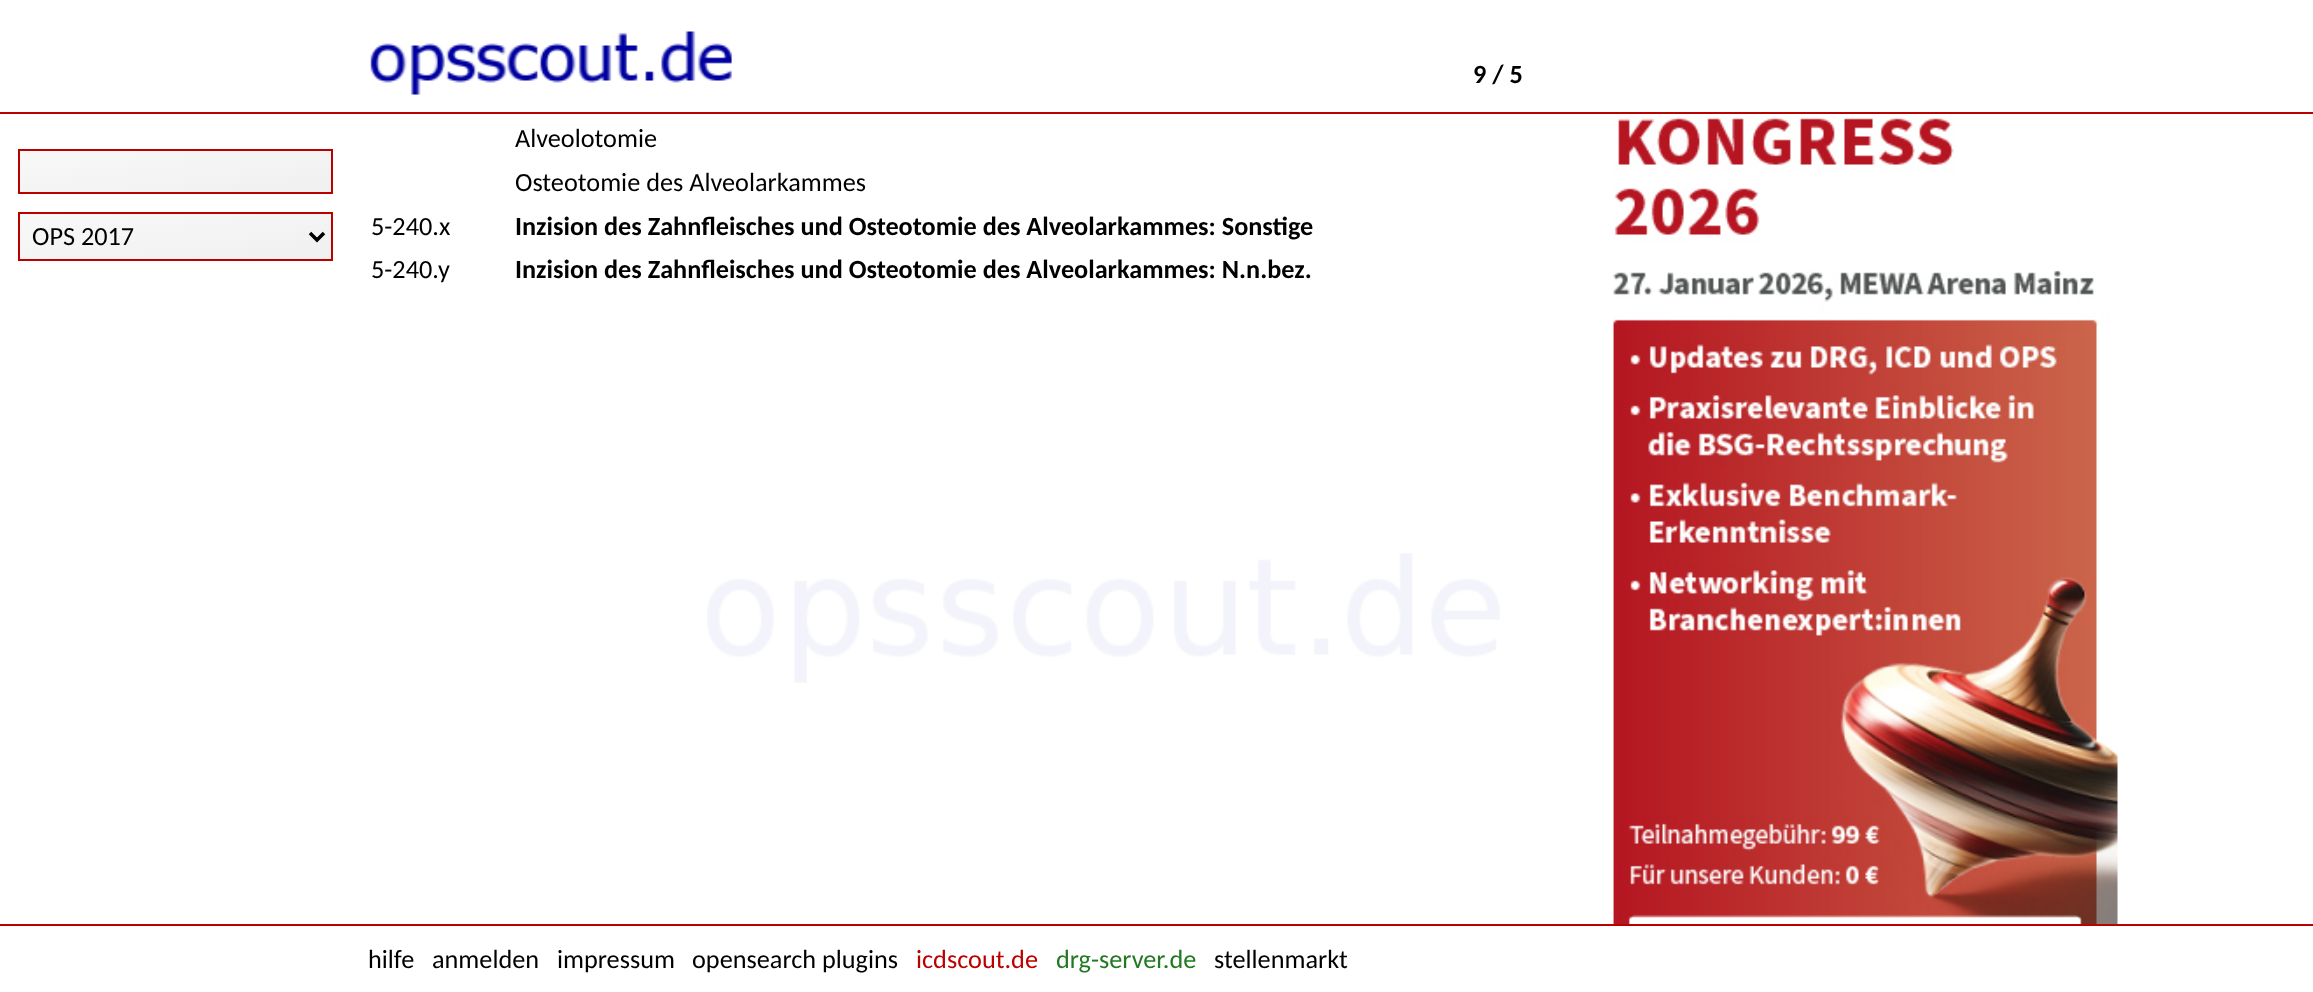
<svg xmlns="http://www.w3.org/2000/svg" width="2313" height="992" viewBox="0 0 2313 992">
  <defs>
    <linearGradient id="g1" gradientUnits="userSpaceOnUse" x1="181" y1="213" x2="169" y2="130"><stop offset="0" stop-color="#f0f0f0"/><stop offset="1" stop-color="#f8f8f8"/></linearGradient>
    <linearGradient id="g2" gradientUnits="userSpaceOnUse" x1="182" y1="281" x2="168" y2="192"><stop offset="0" stop-color="#f0f0f0"/><stop offset="1" stop-color="#f8f8f8"/></linearGradient>
  </defs>
  <rect width="100%" height="100%" fill="#ffffff"/>
  <rect x="0" y="112" width="2313" height="2" fill="#bb0000"/>
  <image x="370" y="31" width="362" height="64" href="img1.png"/>
  <text x="1473" y="83" font-family="Carlito" font-size="26.25" font-weight="bold" fill="#000000">9 / 5</text>
  <rect x="20" y="151" width="311" height="41" fill="url(#g1)"/>
  <rect x="19" y="150" width="313" height="43" fill="none" stroke="#bb0000" stroke-width="2"/>
  <rect x="20" y="214" width="311" height="45" fill="url(#g2)"/>
  <rect x="19" y="213" width="313" height="47" fill="none" stroke="#bb0000" stroke-width="2"/>
  <path d="M310 233L317 240L324 233" fill="none" stroke="#000000" stroke-width="3.5"/>
  <text x="32" y="245" font-family="Carlito" font-size="26.25" fill="#000000">OPS 2017</text>
  <text x="515" y="147" font-family="Carlito" font-size="26.25" fill="#000000">Alveolotomie</text>
  <text x="515" y="191" font-family="Carlito" font-size="26.25" fill="#000000">Osteotomie des Alveolarkammes</text>
  <text x="371" y="235" font-family="Carlito" font-size="26.25" fill="#000000">5-240.x</text>
  <text x="515" y="235" font-family="Carlito" font-size="26.25" font-weight="bold" fill="#000000">Inzision des Zahnfleisches und Osteotomie des Alveolarkammes: Sonstige</text>
  <text x="371" y="278" font-family="Carlito" font-size="26.25" fill="#000000">5-240.y</text>
  <text x="515" y="278" font-family="Carlito" font-size="26.25" font-weight="bold" fill="#000000">Inzision des Zahnfleisches und Osteotomie des Alveolarkammes: N.n.bez.</text>
  <image x="1613" y="114" width="505" height="810" href="img2.png"/>
  <image x="707" y="553" width="793" height="130" href="img3.png"/>
  <rect x="0" y="924" width="2313" height="2" fill="#bb0000"/>
  <text x="368" y="968" font-family="Carlito" font-size="26.25" fill="#000000">hilfe</text>
  <text x="432" y="968" font-family="Carlito" font-size="26.25" fill="#000000">anmelden</text>
  <text x="557" y="968" font-family="Carlito" font-size="26.25" fill="#000000">impressum</text>
  <text x="692" y="968" font-family="Carlito" font-size="26.25" fill="#000000">opensearch plugins</text>
  <text x="916" y="968" font-family="Carlito" font-size="26.25" fill="#bb0000">icdscout.de</text>
  <text x="1056" y="968" font-family="Carlito" font-size="26.25" fill="#227922">drg-server.de</text>
  <text x="1214" y="968" font-family="Carlito" font-size="26.25" fill="#000000">stellenmarkt</text>
</svg>
